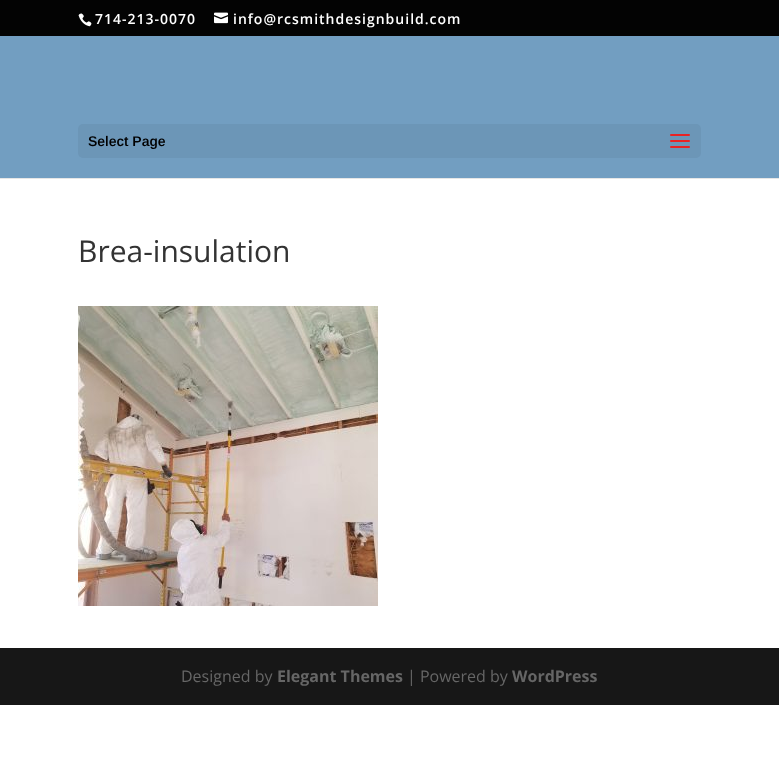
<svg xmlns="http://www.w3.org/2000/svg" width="779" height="764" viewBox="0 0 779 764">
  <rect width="100%" height="100%" fill="#ffffff"/>
  <rect x="0" y="0" width="779" height="36" fill="#030303"/>
  <image x="78" y="13" width="14" height="14" href="img1.png"/>
  <text x="95" y="24" font-family="Open Sans" font-size="14" font-weight="600" letter-spacing="1" fill="#ffffff">714-213-0070</text>
  <image x="214" y="12" width="14" height="12" href="img2.png"/>
  <text x="233" y="24" font-family="Open Sans" font-size="14" font-weight="600" letter-spacing="1" fill="#ffffff">info@rcsmithdesignbuild.com</text>
  <rect x="0" y="178" width="779" height="1" fill="#e6e6e6"/>
  <rect x="0" y="36" width="779" height="142" fill="#729ec1"/>
  <rect x="78" y="124" width="623" height="34" rx="5" fill="#6c96b7"/>
  <text x="88" y="146" font-family="Arimo" font-size="14" font-weight="600" fill="#000000">Select Page</text>
  <image x="670" y="134" width="20" height="14" href="img3.png"/>
  <text x="78" y="262" font-family="Open Sans" font-size="30" fill="#333333">Brea-insulation</text>
  <image x="78" y="306" width="300" height="300" href="img4.png"/>
  <rect x="0" y="648" width="779" height="57" fill="#171717"/>
  <text x="181" y="682" font-family="Open Sans" font-size="16" fill="#666666">Designed by</text>
  <text x="277" y="682" font-family="Open Sans" font-size="16" font-weight="bold" fill="#666666">Elegant Themes</text>
  <text x="407" y="682" font-family="Open Sans" font-size="16" fill="#666666">| Powered by</text>
  <text x="512" y="682" font-family="Open Sans" font-size="16" font-weight="bold" fill="#666666">WordPress</text>
</svg>
